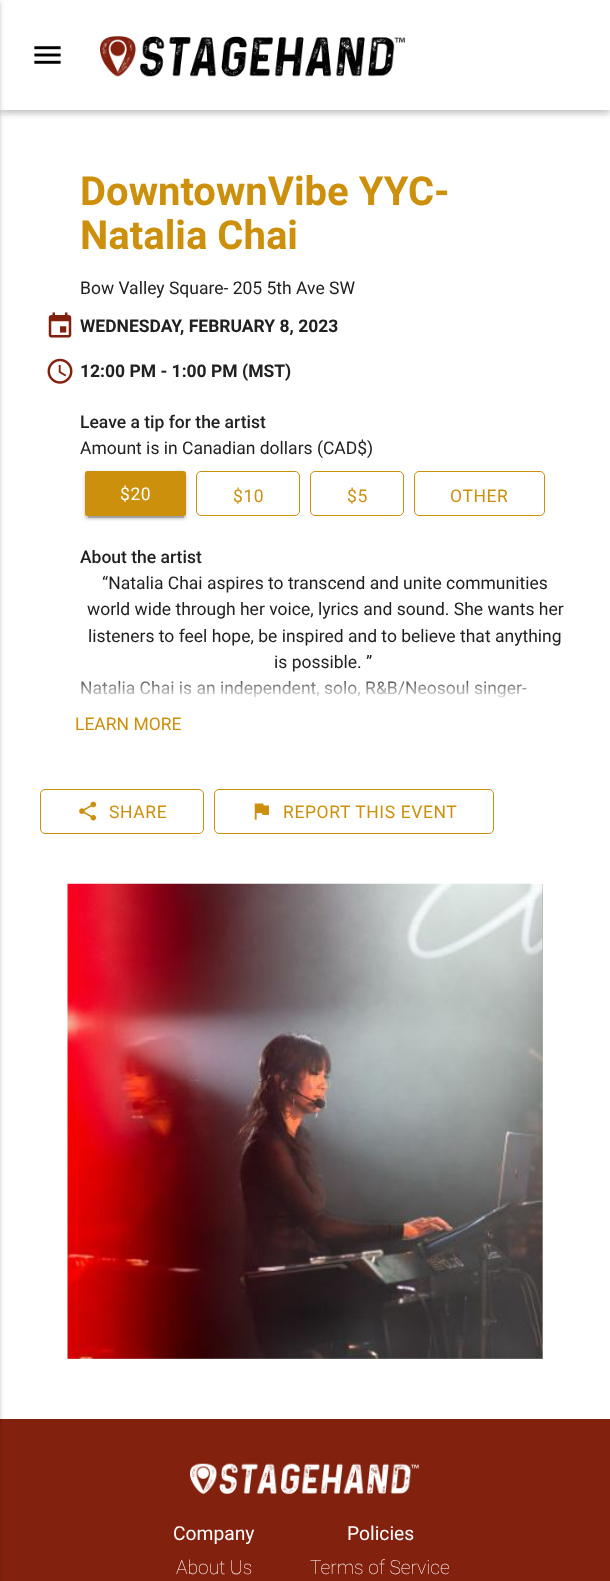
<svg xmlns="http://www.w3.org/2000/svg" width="610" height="1581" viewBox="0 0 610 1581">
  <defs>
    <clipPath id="clip1"><rect x="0" y="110" width="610" height="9"/></clipPath>
    <filter id="blur1" x="-50%" y="-200%" width="200%" height="500%"><feGaussianBlur stdDeviation="6"/></filter>
    <clipPath id="clip2"><rect x="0" y="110" width="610" height="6"/></clipPath>
    <filter id="blur2" x="-50%" y="-200%" width="200%" height="500%"><feGaussianBlur stdDeviation="3"/></filter>
    <filter id="blur3" x="-50%" y="-200%" width="200%" height="500%"><feGaussianBlur stdDeviation="1"/></filter>
    <filter id="blur4" x="-50%" y="-200%" width="200%" height="500%"><feGaussianBlur stdDeviation="0.5"/></filter>
    <linearGradient id="g1" gradientUnits="userSpaceOnUse" x1="325" y1="675" x2="325" y2="701"><stop offset="0" stop-color="#ffffff" stop-opacity="0"/><stop offset="1" stop-color="#ffffff"/></linearGradient>
  </defs>
  <rect width="100%" height="100%" fill="#ffffff"/>
  <g clip-path="url(#clip1)">
    <rect x="0" y="3" width="610" height="110" fill="#000000" fill-opacity="0.12" filter="url(#blur1)"/>
  </g>
  <g clip-path="url(#clip2)">
    <rect x="0" y="3" width="610" height="110" fill="#000000" fill-opacity="0.16" filter="url(#blur2)"/>
  </g>
  <image x="34" y="46" width="27" height="18" href="img1.png"/>
  <image x="100" y="36" width="305" height="41" href="img2.png"/>
  <rect x="0" y="1419" width="610" height="162" fill="#83210f"/>
  <rect x="-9" y="1" width="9" height="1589" fill="#000000" fill-opacity="0.12" filter="url(#blur2)"/>
  <rect x="-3" y="3" width="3" height="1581" fill="#000000" fill-opacity="0.14" filter="url(#blur3)"/>
  <text x="80" y="205" font-family="Roboto" font-size="40" font-weight="bold" fill="#cc900c">DowntownVibe YYC-</text>
  <text x="80" y="249" font-family="Roboto" font-size="40" font-weight="bold" fill="#cc900c">Natalia Chai</text>
  <text x="80" y="294" font-family="Roboto" font-size="17.5" fill="#212121">Bow Valley Square- 205 5th Ave SW</text>
  <image x="48" y="312" width="24" height="26" href="img3.png"/>
  <text x="80" y="332" font-family="Roboto" font-size="17.5" font-weight="bold" fill="#212121">WEDNESDAY, FEBRUARY 8, 2023</text>
  <image x="47" y="358" width="26" height="26" href="img4.png"/>
  <text x="80" y="377" font-family="Roboto" font-size="17.5" font-weight="bold" fill="#212121">12:00 PM - 1:00 PM (MST)</text>
  <text x="80" y="428" font-family="Roboto" font-size="17.5" font-weight="500" fill="#212121">Leave a tip for the artist</text>
  <text x="80" y="454" font-family="Roboto" font-size="17.5" fill="#212121">Amount is in Canadian dollars (CAD$)</text>
  <rect x="88" y="478" width="96" height="40" fill="#000000" fill-opacity="0.2" filter="url(#blur4)"/>
  <rect x="85" y="473" width="101" height="45" rx="2.5" fill="#000000" fill-opacity="0.12" filter="url(#blur2)"/>
  <rect x="85" y="474" width="101" height="45" rx="2.5" fill="#000000" fill-opacity="0.14" filter="url(#blur3)"/>
  <rect x="85" y="471" width="101" height="45" rx="2.5" fill="#cc900c"/>
  <text x="120" y="500" font-family="Roboto" font-size="17.5" letter-spacing="0.6" fill="#ffffff">$20</text>
  <rect x="196.5" y="471.5" width="103" height="44" rx="4.5" fill="none" stroke="#cc900c"/>
  <text x="233" y="502" font-family="Roboto" font-size="17.5" letter-spacing="0.6" fill="#cc900c">$10</text>
  <rect x="310.5" y="471.5" width="93" height="44" rx="4.5" fill="none" stroke="#cc900c"/>
  <text x="347" y="502" font-family="Roboto" font-size="17.5" letter-spacing="0.6" fill="#cc900c">$5</text>
  <rect x="414.5" y="471.5" width="130" height="44" rx="4.5" fill="none" stroke="#cc900c"/>
  <text x="450" y="502" font-family="Roboto" font-size="17.5" letter-spacing="0.6" fill="#cc900c">OTHER</text>
  <text x="80" y="563" font-family="Roboto" font-size="17.5" font-weight="500" fill="#212121">About the artist</text>
  <text x="102" y="589" font-family="Roboto" font-size="17.5" fill="#212121">“Natalia Chai aspires to transcend and unite communities</text>
  <text x="87" y="615" font-family="Roboto" font-size="17.5" fill="#212121">world wide through her voice, lyrics and sound. She wants her</text>
  <text x="88" y="642" font-family="Roboto" font-size="17.5" fill="#212121">listeners to feel hope, be inspired and to believe that anything</text>
  <text x="274" y="668" font-family="Roboto" font-size="17.5" fill="#212121">is possible. ”</text>
  <text x="80" y="694" font-family="Roboto" font-size="17.5" fill="#212121">Natalia Chai is an independent, solo, R&amp;B/Neosoul singer-</text>
  <rect x="81" y="680" width="446" height="18" fill="url(#g1)"/>
  <text x="75" y="730" font-family="Roboto" font-size="17.5" fill="#cc900c">LEARN MORE</text>
  <rect x="40.5" y="789.5" width="163" height="44" rx="4.5" fill="none" stroke="#cc900c"/>
  <image x="79" y="801" width="18" height="20" href="img5.png"/>
  <text x="109" y="818" font-family="Roboto" font-size="17.5" letter-spacing="0.6" fill="#cc900c">SHARE</text>
  <rect x="214.5" y="789.5" width="279" height="44" rx="4.5" fill="none" stroke="#cc900c"/>
  <image x="254" y="803" width="15" height="17" href="img6.png"/>
  <text x="283" y="818" font-family="Roboto" font-size="17.5" letter-spacing="0.6" fill="#cc900c">REPORT THIS EVENT</text>
  <rect x="68" y="884" width="475" height="475" fill="#b4b5ad"/>
  <image x="67" y="883" width="476" height="476" href="img7.png"/>
  <image x="190" y="1463" width="229" height="31" href="img8.png"/>
  <text x="173" y="1540" font-family="Roboto" font-size="19.25" fill="#ffffff">Company</text>
  <text x="176" y="1574" font-family="Roboto" font-size="19.25" font-weight="100" fill="#ffffff">About Us</text>
  <text x="347" y="1540" font-family="Roboto" font-size="19.25" fill="#ffffff">Policies</text>
  <text x="310" y="1574" font-family="Roboto" font-size="19.25" font-weight="100" fill="#ffffff">Terms of Service</text>
</svg>
